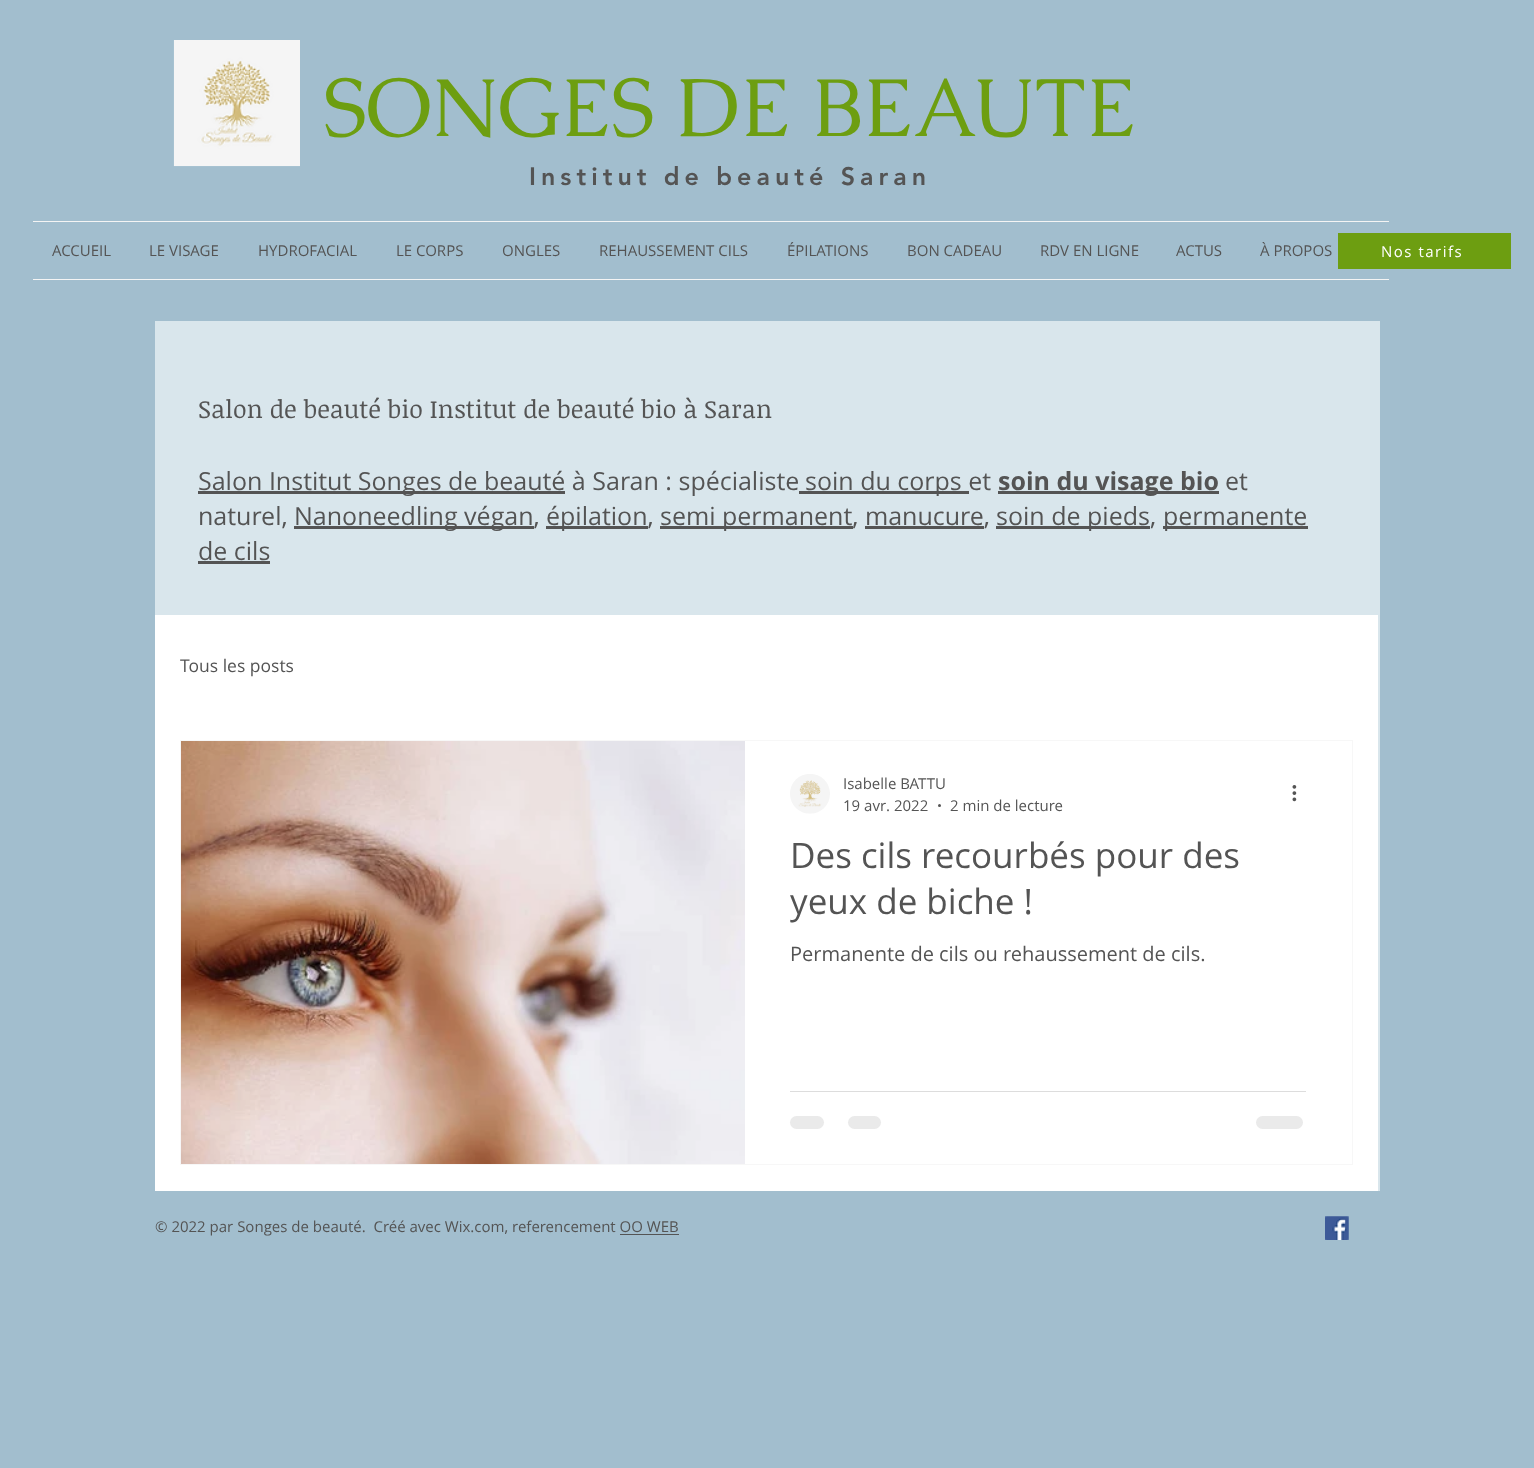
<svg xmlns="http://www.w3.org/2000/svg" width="1534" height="1468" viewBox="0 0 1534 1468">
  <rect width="100%" height="100%" fill="#a2bece"/>
  <image x="173" y="40" width="127" height="127" href="img1.png"/>
  <text x="323" y="136" font-family="Caudex" font-size="82.5" fill="#6d9e11">SONGES DE BEAUTE</text>
  <text x="529" y="185" font-family="'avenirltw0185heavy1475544'" font-size="25" font-weight="900" letter-spacing="5" fill="#545454">Institut de beauté Saran</text>
  <rect x="33" y="221" width="1356" height="1" fill="#f4f4f4"/>
  <rect x="33" y="279" width="1356" height="1" fill="#f4f4f4"/>
  <text x="52" y="256" font-family="Open Sans" font-size="15" fill="#545454">ACCUEIL</text>
  <text x="149" y="256" font-family="Open Sans" font-size="15" fill="#545454">LE VISAGE</text>
  <text x="258" y="256" font-family="Open Sans" font-size="15" fill="#545454">HYDROFACIAL</text>
  <text x="396" y="256" font-family="Open Sans" font-size="15" fill="#545454">LE CORPS</text>
  <text x="502" y="256" font-family="Open Sans" font-size="15" fill="#545454">ONGLES</text>
  <text x="599" y="256" font-family="Open Sans" font-size="15" fill="#545454">REHAUSSEMENT CILS</text>
  <text x="787" y="256" font-family="Open Sans" font-size="15" fill="#545454">ÉPILATIONS</text>
  <text x="907" y="256" font-family="Open Sans" font-size="15" fill="#545454">BON CADEAU</text>
  <text x="1040" y="256" font-family="Open Sans" font-size="15" fill="#545454">RDV EN LIGNE</text>
  <text x="1176" y="256" font-family="Open Sans" font-size="15" fill="#545454">ACTUS</text>
  <text x="1260" y="256" font-family="Open Sans" font-size="15" fill="#545454">À PROPOS</text>
  <rect x="1338" y="233" width="173" height="36" fill="#6d9e11"/>
  <text x="1381" y="257" font-family="Open Sans" font-size="15" letter-spacing="1.5" fill="#ffffff">Nos tarifs</text>
  <rect x="155" y="321" width="1225" height="870" fill="#d9e6ec"/>
  <text x="198" y="418" font-family="Noticia Text" font-size="25" fill="#545454">Salon de beauté bio Institut de beauté bio à Saran</text>
  <rect x="198" y="491" width="367" height="3" fill="#545454"/>
  <text x="198" y="490" font-family="Open Sans" font-size="25" fill="#545454">Salon Institut Songes de beauté à Saran : spécialiste</text>
  <rect x="799" y="491" width="170" height="3" fill="#545454"/>
  <text x="805" y="490" font-family="Open Sans" font-size="25" fill="#545454">soin du corps et</text>
  <rect x="998" y="491" width="221" height="3" fill="#545454"/>
  <text x="998" y="490" font-family="Open Sans" font-size="25" font-weight="bold" fill="#545454">soin du visage bio</text>
  <text x="1225" y="490" font-family="Open Sans" font-size="25" fill="#545454">et</text>
  <text x="198" y="525" font-family="Open Sans" font-size="25" fill="#545454">naturel,</text>
  <rect x="294" y="526" width="240" height="3" fill="#545454"/>
  <text x="294" y="525" font-family="Open Sans" font-size="25" fill="#545454">Nanoneedling végan,</text>
  <rect x="546" y="526" width="102" height="3" fill="#545454"/>
  <text x="546" y="525" font-family="Open Sans" font-size="25" fill="#545454">épilation,</text>
  <rect x="660" y="526" width="193" height="3" fill="#545454"/>
  <text x="660" y="525" font-family="Open Sans" font-size="25" fill="#545454">semi permanent, manucure,</text>
  <rect x="865" y="526" width="119" height="3" fill="#545454"/>
  <rect x="996" y="526" width="154" height="3" fill="#545454"/>
  <text x="996" y="525" font-family="Open Sans" font-size="25" fill="#545454">soin de pieds,</text>
  <rect x="1163" y="526" width="145" height="3" fill="#545454"/>
  <text x="1163" y="525" font-family="Open Sans" font-size="25" fill="#545454">permanente</text>
  <text x="198" y="560" font-family="Open Sans" font-size="25" fill="#545454">de cils</text>
  <rect x="198" y="561" width="72" height="3" fill="#545454"/>
  <rect x="155" y="615" width="1223" height="576" fill="#ffffff"/>
  <text x="180" y="672" font-family="Open Sans" font-size="17.5" fill="#545454">Tous les posts</text>
  <rect x="180.5" y="740.5" width="1172" height="424" fill="none" stroke="#f7f7f7"/>
  <image x="181" y="741" width="564" height="423" href="img2.png"/>
  <image x="790" y="774" width="40" height="40" href="img3.png"/>
  <text x="843" y="789" font-family="Open Sans" font-size="15" fill="#545454">Isabelle BATTU</text>
  <text x="843" y="811" font-family="Open Sans" font-size="15" fill="#545454">19 avr. 2022</text>
  <circle cx="939.5" cy="805.5" r="1.5" fill="#545454"/>
  <text x="950" y="811" font-family="Open Sans" font-size="15" fill="#545454">2 min de lecture</text>
  <image x="1292" y="785" width="5" height="17" href="img4.png"/>
  <text x="790" y="868" font-family="Open Sans" font-size="35" fill="#545454">Des cils recourbés pour des</text>
  <text x="790" y="914" font-family="Open Sans" font-size="35" fill="#545454">yeux de biche !</text>
  <text x="790" y="961" font-family="Open Sans" font-size="20" fill="#545454">Permanente de cils ou rehaussement de cils.</text>
  <rect x="790" y="1091" width="516" height="1" fill="#dddddd"/>
  <rect x="790" y="1116" width="34" height="13" rx="6.5" fill="#eaeaea"/>
  <rect x="848" y="1116" width="33" height="13" rx="6.5" fill="#eaeaea"/>
  <rect x="1256" y="1116" width="47" height="13" rx="6.5" fill="#eaeaea"/>
  <text x="155" y="1232" font-family="Open Sans" font-size="15" fill="#545454" xml:space="preserve">© 2022 par Songes de beauté.  Créé avec Wix.com, referencement OO WEB</text>
  <rect x="620" y="1234" width="59" height="1" fill="#545454"/>
  <image x="1325" y="1216" width="24" height="24" href="img5.png"/>
</svg>
